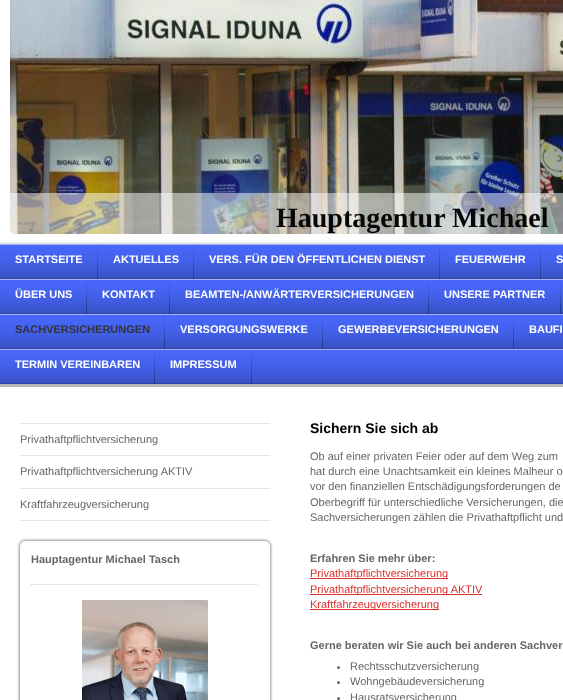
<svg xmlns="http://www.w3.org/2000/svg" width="563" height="700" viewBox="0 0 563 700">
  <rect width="100%" height="100%" fill="#ffffff"/>
  <image x="10" y="0" width="553" height="234" href="img2.png"/>
  <rect x="10" y="193" width="553" height="41" fill="#ffffff" fill-opacity="0.5"/>
  <image x="10" y="230" width="4" height="4" href="img1.png"/>
  <text x="276" y="227" font-family="Liberation Serif" font-size="28" font-weight="bold" fill="#070707">Hauptagentur Michael</text>
  <image x="0" y="242" width="563" height="2" href="img3.png"/>
  <rect x="0" y="244" width="563" height="140" fill="#4868fb"/>
  <image x="0" y="244" width="563" height="140" href="img4.png"/>
  <image x="97" y="244" width="1" height="35" href="img5.png"/>
  <text x="15" y="263" font-family="Liberation Sans" font-size="11" font-weight="bold" fill="#ffffff">STARTSEITE</text>
  <image x="193" y="244" width="1" height="35" href="img5.png"/>
  <text x="113" y="263" font-family="Liberation Sans" font-size="11" font-weight="bold" fill="#ffffff">AKTUELLES</text>
  <image x="439" y="244" width="1" height="35" href="img5.png"/>
  <text x="209" y="263" font-family="Liberation Sans" font-size="11" font-weight="bold" fill="#ffffff">VERS. FÜR DEN ÖFFENTLICHEN DIENST</text>
  <image x="540" y="244" width="1" height="35" href="img5.png"/>
  <text x="455" y="263" font-family="Liberation Sans" font-size="11" font-weight="bold" fill="#ffffff">FEUERWEHR</text>
  <text x="556" y="263" font-family="Liberation Sans" font-size="11" font-weight="bold" fill="#ffffff">S</text>
  <image x="86" y="279" width="1" height="35" href="img5.png"/>
  <text x="15" y="298" font-family="Liberation Sans" font-size="11" font-weight="bold" fill="#ffffff">ÜBER UNS</text>
  <image x="169" y="279" width="1" height="35" href="img5.png"/>
  <text x="102" y="298" font-family="Liberation Sans" font-size="11" font-weight="bold" fill="#ffffff">KONTAKT</text>
  <image x="428" y="279" width="1" height="35" href="img5.png"/>
  <text x="185" y="298" font-family="Liberation Sans" font-size="11" font-weight="bold" fill="#ffffff">BEAMTEN-/ANWÄRTERVERSICHERUNGEN</text>
  <image x="560" y="279" width="1" height="35" href="img5.png"/>
  <text x="444" y="298" font-family="Liberation Sans" font-size="11" font-weight="bold" fill="#ffffff">UNSERE PARTNER</text>
  <image x="164" y="314" width="1" height="35" href="img5.png"/>
  <text x="15" y="333" font-family="Liberation Sans" font-size="11" font-weight="bold" fill="#333333">SACHVERSICHERUNGEN</text>
  <image x="322" y="314" width="1" height="35" href="img5.png"/>
  <text x="180" y="333" font-family="Liberation Sans" font-size="11" font-weight="bold" fill="#ffffff">VERSORGUNGSWERKE</text>
  <image x="513" y="314" width="1" height="35" href="img5.png"/>
  <text x="338" y="333" font-family="Liberation Sans" font-size="11" font-weight="bold" fill="#ffffff">GEWERBEVERSICHERUNGEN</text>
  <text x="529" y="333" font-family="Liberation Sans" font-size="11" font-weight="bold" fill="#ffffff">BAUFI</text>
  <image x="154" y="349" width="1" height="35" href="img5.png"/>
  <text x="15" y="368" font-family="Liberation Sans" font-size="11" font-weight="bold" fill="#ffffff">TERMIN VEREINBAREN</text>
  <image x="251" y="349" width="1" height="35" href="img5.png"/>
  <text x="170" y="368" font-family="Liberation Sans" font-size="11" font-weight="bold" fill="#ffffff">IMPRESSUM</text>
  <rect x="0" y="384" width="563" height="3" fill="#b7b7b7"/>
  <rect x="20" y="423" width="250" height="1" fill="#e5e5e5"/>
  <text x="20" y="443" font-family="Liberation Sans" font-size="11" fill="#666666">Privathaftpflichtversicherung</text>
  <rect x="20" y="455" width="250" height="1" fill="#e5e5e5"/>
  <text x="20" y="475" font-family="Liberation Sans" font-size="11" fill="#666666">Privathaftpflichtversicherung AKTIV</text>
  <rect x="20" y="488" width="250" height="1" fill="#e5e5e5"/>
  <rect x="20" y="520" width="250" height="1" fill="#e5e5e5"/>
  <text x="20" y="508" font-family="Liberation Sans" font-size="11" fill="#666666">Kraftfahrzeugversicherung</text>
  <image x="17" y="538" width="256" height="9" href="img6.png"/>
  <image x="17" y="547" width="256" height="153" href="img7.png"/>
  <text x="31" y="563" font-family="Liberation Sans" font-size="11" font-weight="bold" fill="#666666">Hauptagentur Michael Tasch</text>
  <path d="M31 584.5H259" fill="none" stroke="#cccccc" stroke-dasharray="1 1"/>
  <image x="82" y="600" width="126" height="100" href="img8.png"/>
  <text x="310" y="433" font-family="Liberation Sans" font-size="14" font-weight="bold" fill="#000000">Sichern Sie sich ab</text>
  <text x="310" y="460" font-family="Liberation Sans" font-size="11" fill="#666666">Ob auf einer privaten Feier oder auf dem Weg zum</text>
  <text x="310" y="475" font-family="Liberation Sans" font-size="11" fill="#666666">hat durch eine Unachtsamkeit ein kleines Malheur o</text>
  <text x="310" y="490" font-family="Liberation Sans" font-size="11" fill="#666666">vor den finanziellen Entschädigungsforderungen de</text>
  <text x="310" y="506" font-family="Liberation Sans" font-size="11" fill="#666666">Oberbegriff für unterschiedliche Versicherungen, die</text>
  <text x="310" y="521" font-family="Liberation Sans" font-size="11" fill="#666666">Sachversicherungen zählen die Privathaftpflicht und</text>
  <text x="310" y="562" font-family="Liberation Sans" font-size="11" font-weight="bold" fill="#666666">Erfahren Sie mehr über:</text>
  <rect x="310" y="578" width="138" height="1" fill="#db2f2c"/>
  <text x="310" y="577" font-family="Liberation Sans" font-size="11" fill="#db2f2c">Privathaftpflichtversicherung</text>
  <rect x="310" y="594" width="172" height="1" fill="#db2f2c"/>
  <text x="310" y="593" font-family="Liberation Sans" font-size="11" fill="#db2f2c">Privathaftpflichtversicherung AKTIV</text>
  <rect x="310" y="609" width="129" height="1" fill="#db2f2c"/>
  <text x="310" y="608" font-family="Liberation Sans" font-size="11" fill="#db2f2c">Kraftfahrzeugversicherung</text>
  <text x="310" y="649" font-family="Liberation Sans" font-size="11" font-weight="bold" fill="#666666">Gerne beraten wir Sie auch bei anderen Sachver</text>
  <circle cx="338.5" cy="667.5" r="1.5" fill="#666666"/>
  <text x="350" y="670" font-family="Liberation Sans" font-size="11" fill="#666666">Rechtsschutzversicherung</text>
  <circle cx="338.5" cy="682.5" r="1.5" fill="#666666"/>
  <text x="350" y="685" font-family="Liberation Sans" font-size="11" fill="#666666">Wohngebäudeversicherung</text>
  <circle cx="338.5" cy="698.5" r="1.5" fill="#666666"/>
  <text x="350" y="701" font-family="Liberation Sans" font-size="11" fill="#666666">Hausratsversicherung</text>
</svg>
